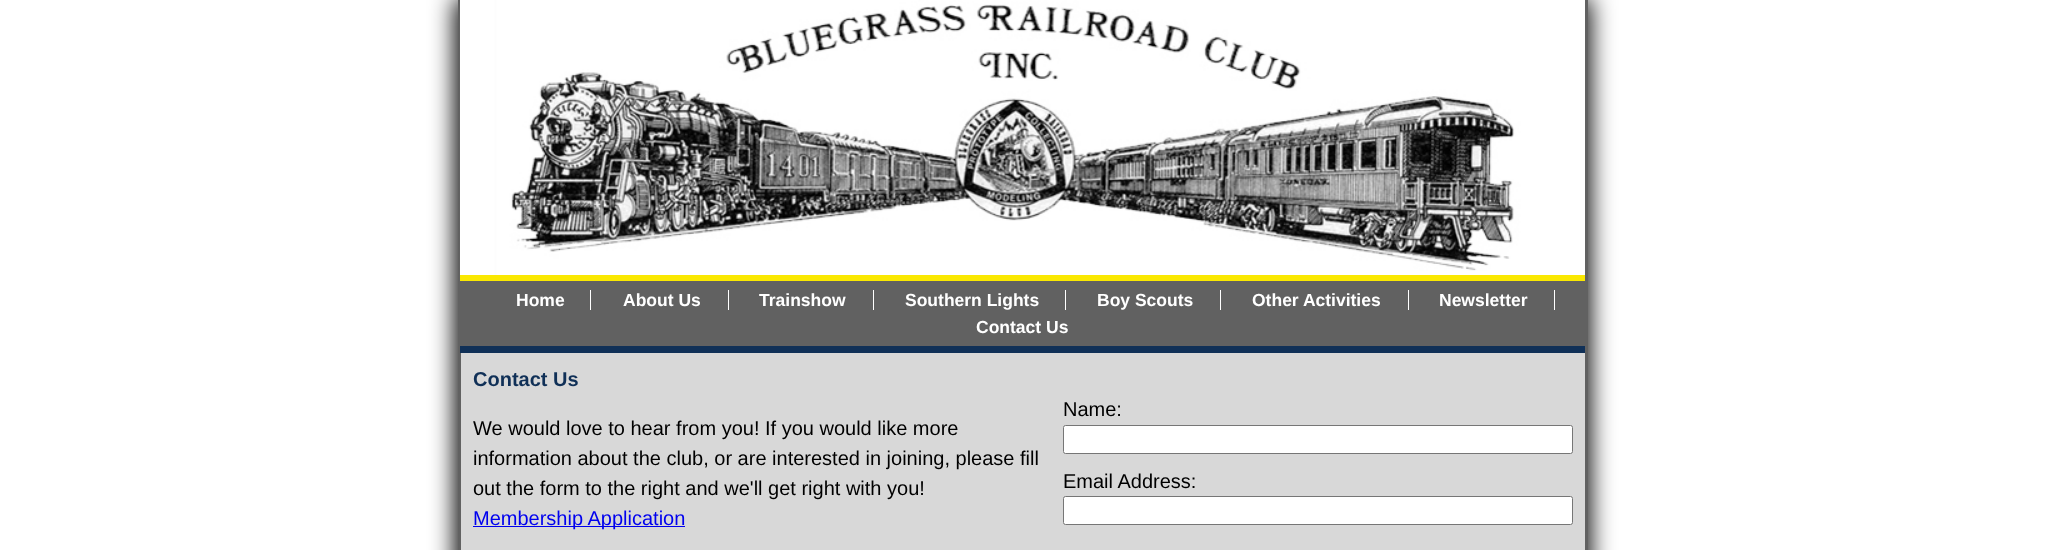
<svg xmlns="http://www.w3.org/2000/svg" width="2045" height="550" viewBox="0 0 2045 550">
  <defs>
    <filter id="blur1" x="-50%" y="-200%" width="200%" height="500%"><feGaussianBlur stdDeviation="12.5"/></filter>
  </defs>
  <rect width="100%" height="100%" fill="#ffffff"/>
  <rect x="455" y="-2" width="1135" height="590" fill="#000000" filter="url(#blur1)"/>
  <rect x="461" y="353" width="1124" height="197" fill="#d8d8d8"/>
  <rect x="1585" y="0" width="3" height="550" fill="#616161"/>
  <rect x="458" y="0" width="3" height="550" fill="#616161"/>
  <image x="460" y="0" width="1125" height="275" href="img1.png"/>
  <rect x="460" y="275" width="1125" height="6" fill="#fae801"/>
  <rect x="461" y="281" width="1124" height="65" fill="#616161"/>
  <text x="516" y="306" font-family="Liberation Sans" font-size="17.5" font-weight="bold" fill="#ffffff">Home</text>
  <rect x="590" y="290" width="1" height="20" fill="#ffffff"/>
  <text x="623" y="306" font-family="Liberation Sans" font-size="17.5" font-weight="bold" fill="#ffffff">About Us</text>
  <rect x="728" y="290" width="1" height="20" fill="#ffffff"/>
  <text x="759" y="306" font-family="Liberation Sans" font-size="17.5" font-weight="bold" fill="#ffffff">Trainshow</text>
  <rect x="873" y="290" width="1" height="20" fill="#ffffff"/>
  <text x="905" y="306" font-family="Liberation Sans" font-size="17.5" font-weight="bold" fill="#ffffff">Southern Lights</text>
  <rect x="1065" y="290" width="1" height="20" fill="#ffffff"/>
  <text x="1097" y="306" font-family="Liberation Sans" font-size="17.5" font-weight="bold" fill="#ffffff">Boy Scouts</text>
  <rect x="1220" y="290" width="1" height="20" fill="#ffffff"/>
  <text x="1252" y="306" font-family="Liberation Sans" font-size="17.5" font-weight="bold" fill="#ffffff">Other Activities</text>
  <rect x="1408" y="290" width="1" height="20" fill="#ffffff"/>
  <text x="1439" y="306" font-family="Liberation Sans" font-size="17.5" font-weight="bold" fill="#ffffff">Newsletter</text>
  <rect x="1554" y="290" width="1" height="20" fill="#ffffff"/>
  <text x="976" y="333" font-family="Liberation Sans" font-size="17.5" font-weight="bold" fill="#ffffff">Contact Us</text>
  <rect x="460" y="346" width="1125" height="7" fill="#103057"/>
  <text x="473" y="386" font-family="Liberation Sans" font-size="20" font-weight="bold" fill="#103057">Contact Us</text>
  <text x="473" y="435" font-family="Liberation Sans" font-size="20" fill="#000000">We would love to hear from you! If you would like more</text>
  <text x="473" y="465" font-family="Liberation Sans" font-size="20" fill="#000000">information about the club, or are interested in joining, please fill</text>
  <text x="473" y="495" font-family="Liberation Sans" font-size="20" fill="#000000">out the form to the right and we'll get right with you!</text>
  <text x="1063" y="416" font-family="Liberation Sans" font-size="20" fill="#000000">Name:</text>
  <rect x="1063.5" y="425.5" width="509" height="28" rx="2" fill="#ffffff" stroke="#767676"/>
  <text x="1063" y="488" font-family="Liberation Sans" font-size="20" fill="#000000">Email Address:</text>
  <rect x="1063.5" y="496.5" width="509" height="28" rx="2" fill="#ffffff" stroke="#767676"/>
  <rect x="473" y="526" width="212" height="1" fill="#0000ee"/>
  <text x="473" y="525" font-family="Liberation Sans" font-size="20" fill="#0000ee">Membership Application</text>
</svg>
